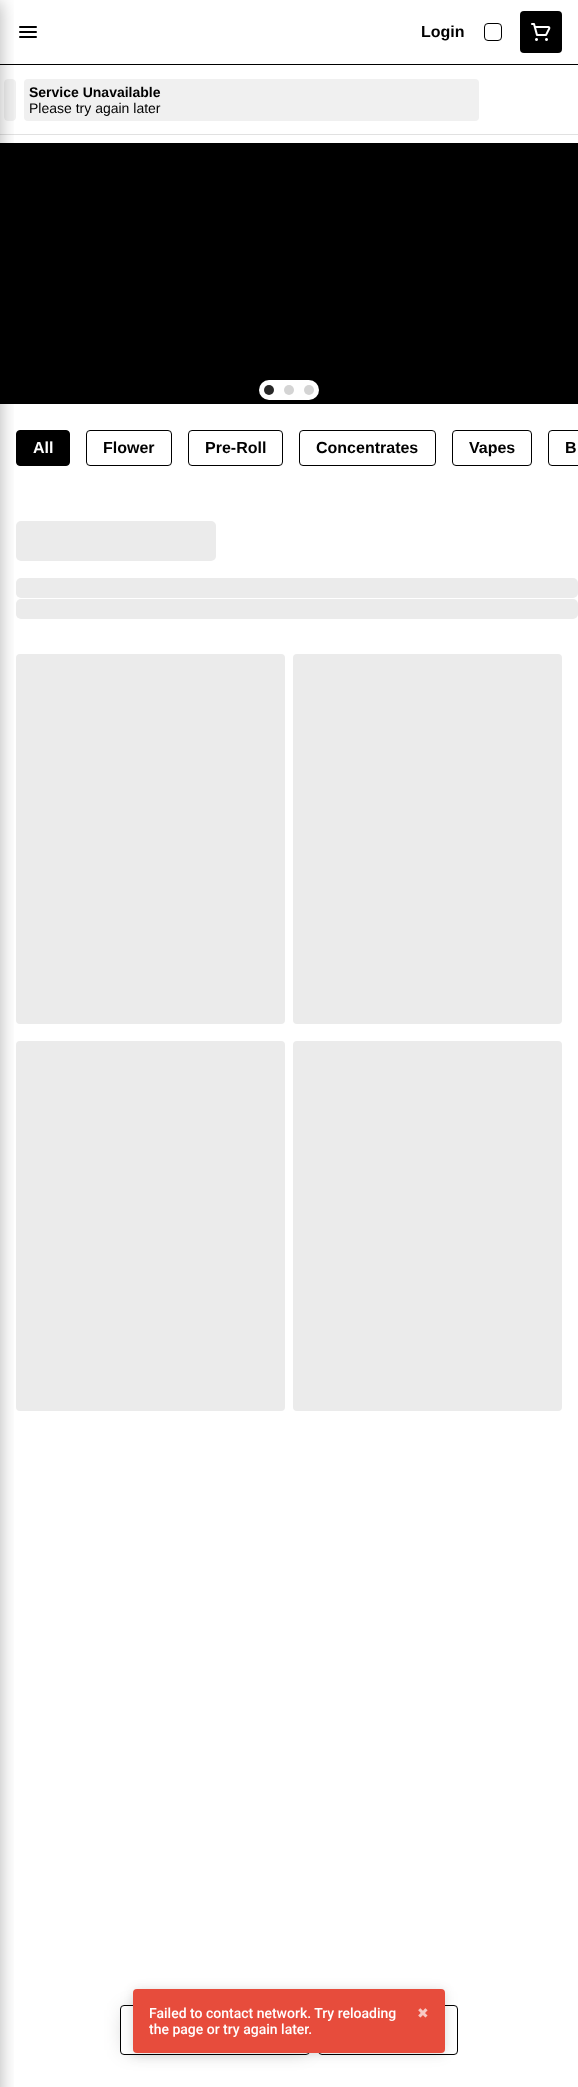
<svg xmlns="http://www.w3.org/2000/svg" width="578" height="2087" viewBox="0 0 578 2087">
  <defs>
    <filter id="blur1" x="-50%" y="-200%" width="200%" height="500%"><feGaussianBlur stdDeviation="9"/></filter>
    <clipPath id="clip1"><path d="M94 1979H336V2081H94ZM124 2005H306C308 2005 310 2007 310 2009V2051C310 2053 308 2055 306 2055H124C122 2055 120 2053 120 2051V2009C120 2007 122 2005 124 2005Z" clip-rule="evenodd"/></clipPath>
    <filter id="blur2" x="-50%" y="-200%" width="200%" height="500%"><feGaussianBlur stdDeviation="10"/></filter>
    <filter id="blur3" x="-50%" y="-200%" width="200%" height="500%"><feGaussianBlur stdDeviation="7.5"/></filter>
    <filter id="blur4" x="-50%" y="-200%" width="200%" height="500%"><feGaussianBlur stdDeviation="5"/></filter>
  </defs>
  <rect width="100%" height="100%" fill="#ffffff"/>
  <rect x="0" y="64" width="578" height="1" fill="#000000"/>
  <rect x="19" y="31" width="18" height="2" rx="1" fill="#000000"/>
  <rect x="19" y="36" width="18" height="2" rx="1" fill="#000000"/>
  <rect x="19" y="26" width="18" height="2" rx="1" fill="#000000"/>
  <rect x="0" y="134" width="578" height="1" fill="#e1e1e1"/>
  <rect x="4.5" y="79.5" width="11" height="41" rx="3.5" fill="#f0f0f0" stroke="#f0f0f0"/>
  <rect x="24" y="79" width="455" height="42" rx="4" fill="#f0f0f0"/>
  <rect x="0" y="143" width="578" height="261" fill="#000000"/>
  <rect x="16.5" y="430.5" width="53" height="35" rx="3.5" fill="#000000" stroke="#000000"/>
  <rect x="16" y="521" width="200" height="40" rx="5" fill="#ebebeb"/>
  <rect x="16" y="578" width="562" height="20" rx="5" fill="#ebebeb"/>
  <rect x="16" y="599" width="562" height="20" rx="5" fill="#ebebeb"/>
  <rect x="16" y="654" width="269" height="370" rx="4" fill="#ebebeb"/>
  <rect x="16" y="1041" width="269" height="370" rx="4" fill="#ebebeb"/>
  <rect x="-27" y="2" width="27" height="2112" fill="#000000" fill-opacity="0.3" filter="url(#blur1)"/>
  <text x="421" y="37" font-family="Liberation Sans" font-size="16" font-weight="bold" fill="#000000">Login</text>
  <rect x="484.5" y="23.5" width="17" height="17" rx="3.5" fill="none" stroke="#000000"/>
  <rect x="520" y="11" width="42" height="42" rx="4" fill="#000000"/>
  <image x="531" y="23" width="20" height="18" href="img1.png"/>
  <text x="29" y="97" font-family="Liberation Sans" font-size="14" font-weight="bold" fill="#000000">Service Unavailable</text>
  <text x="29" y="113" font-family="Liberation Sans" font-size="14" fill="#000000">Please try again later</text>
  <rect x="259" y="380" width="60" height="20" rx="10" fill="#ffffff"/>
  <circle cx="269" cy="390" r="5" fill="#272727"/>
  <circle cx="289" cy="390" r="5" fill="#d4d4d4"/>
  <circle cx="309" cy="390" r="5" fill="#d4d4d4"/>
  <text x="33" y="453" font-family="Liberation Sans" font-size="16" font-weight="bold" fill="#ffffff">All</text>
  <rect x="86.5" y="430.5" width="85" height="35" rx="3.5" fill="none" stroke="#000000"/>
  <text x="103" y="453" font-family="Liberation Sans" font-size="16" font-weight="bold" fill="#000000">Flower</text>
  <rect x="188.5" y="430.5" width="94" height="35" rx="3.5" fill="none" stroke="#000000"/>
  <text x="205" y="453" font-family="Liberation Sans" font-size="16" font-weight="bold" fill="#000000">Pre-Roll</text>
  <rect x="299.5" y="430.5" width="136" height="35" rx="3.5" fill="none" stroke="#000000"/>
  <text x="316" y="453" font-family="Liberation Sans" font-size="16" font-weight="bold" fill="#000000">Concentrates</text>
  <rect x="452.5" y="430.5" width="79" height="35" rx="3.5" fill="none" stroke="#000000"/>
  <text x="469" y="453" font-family="Liberation Sans" font-size="16" font-weight="bold" fill="#000000">Vapes</text>
  <rect x="548.5" y="430.5" width="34" height="35" rx="3.5" fill="none" stroke="#000000"/>
  <text x="565" y="453" font-family="Liberation Sans" font-size="16" font-weight="bold" fill="#000000">B</text>
  <rect x="293" y="654" width="269" height="370" rx="4" fill="#ebebeb"/>
  <rect x="293" y="1041" width="269" height="370" rx="4" fill="#ebebeb"/>
  <rect x="318.5" y="2005.5" width="139" height="49" rx="3.5" fill="none" stroke="#000000"/>
  <g clip-path="url(#clip1)">
    <rect x="125" y="2010" width="180" height="40" fill="#000000" fill-opacity="0.2" filter="url(#blur2)"/>
  </g>
  <rect x="120.5" y="2005.5" width="189" height="49" rx="3.5" fill="none" stroke="#000000"/>
  <rect x="133" y="1991" width="312" height="64" rx="4" fill="#000000" fill-opacity="0.05" filter="url(#blur3)"/>
  <rect x="133" y="1990" width="312" height="64" rx="4" fill="#000000" fill-opacity="0.1" filter="url(#blur4)"/>
  <rect x="133" y="1989" width="312" height="64" rx="4" fill="#e74c3c"/>
  <text x="149" y="2018" font-family="Roboto" font-size="14" font-weight="500" fill="#ffffff">Failed to contact network. Try reloading</text>
  <text x="149" y="2034" font-family="Roboto" font-size="14" font-weight="500" fill="#ffffff">the page or try again later.</text>
  <text x="417" y="2018" font-family="DejaVu Sans" font-size="14" fill="#f8c9c5">✖︎</text>
</svg>
